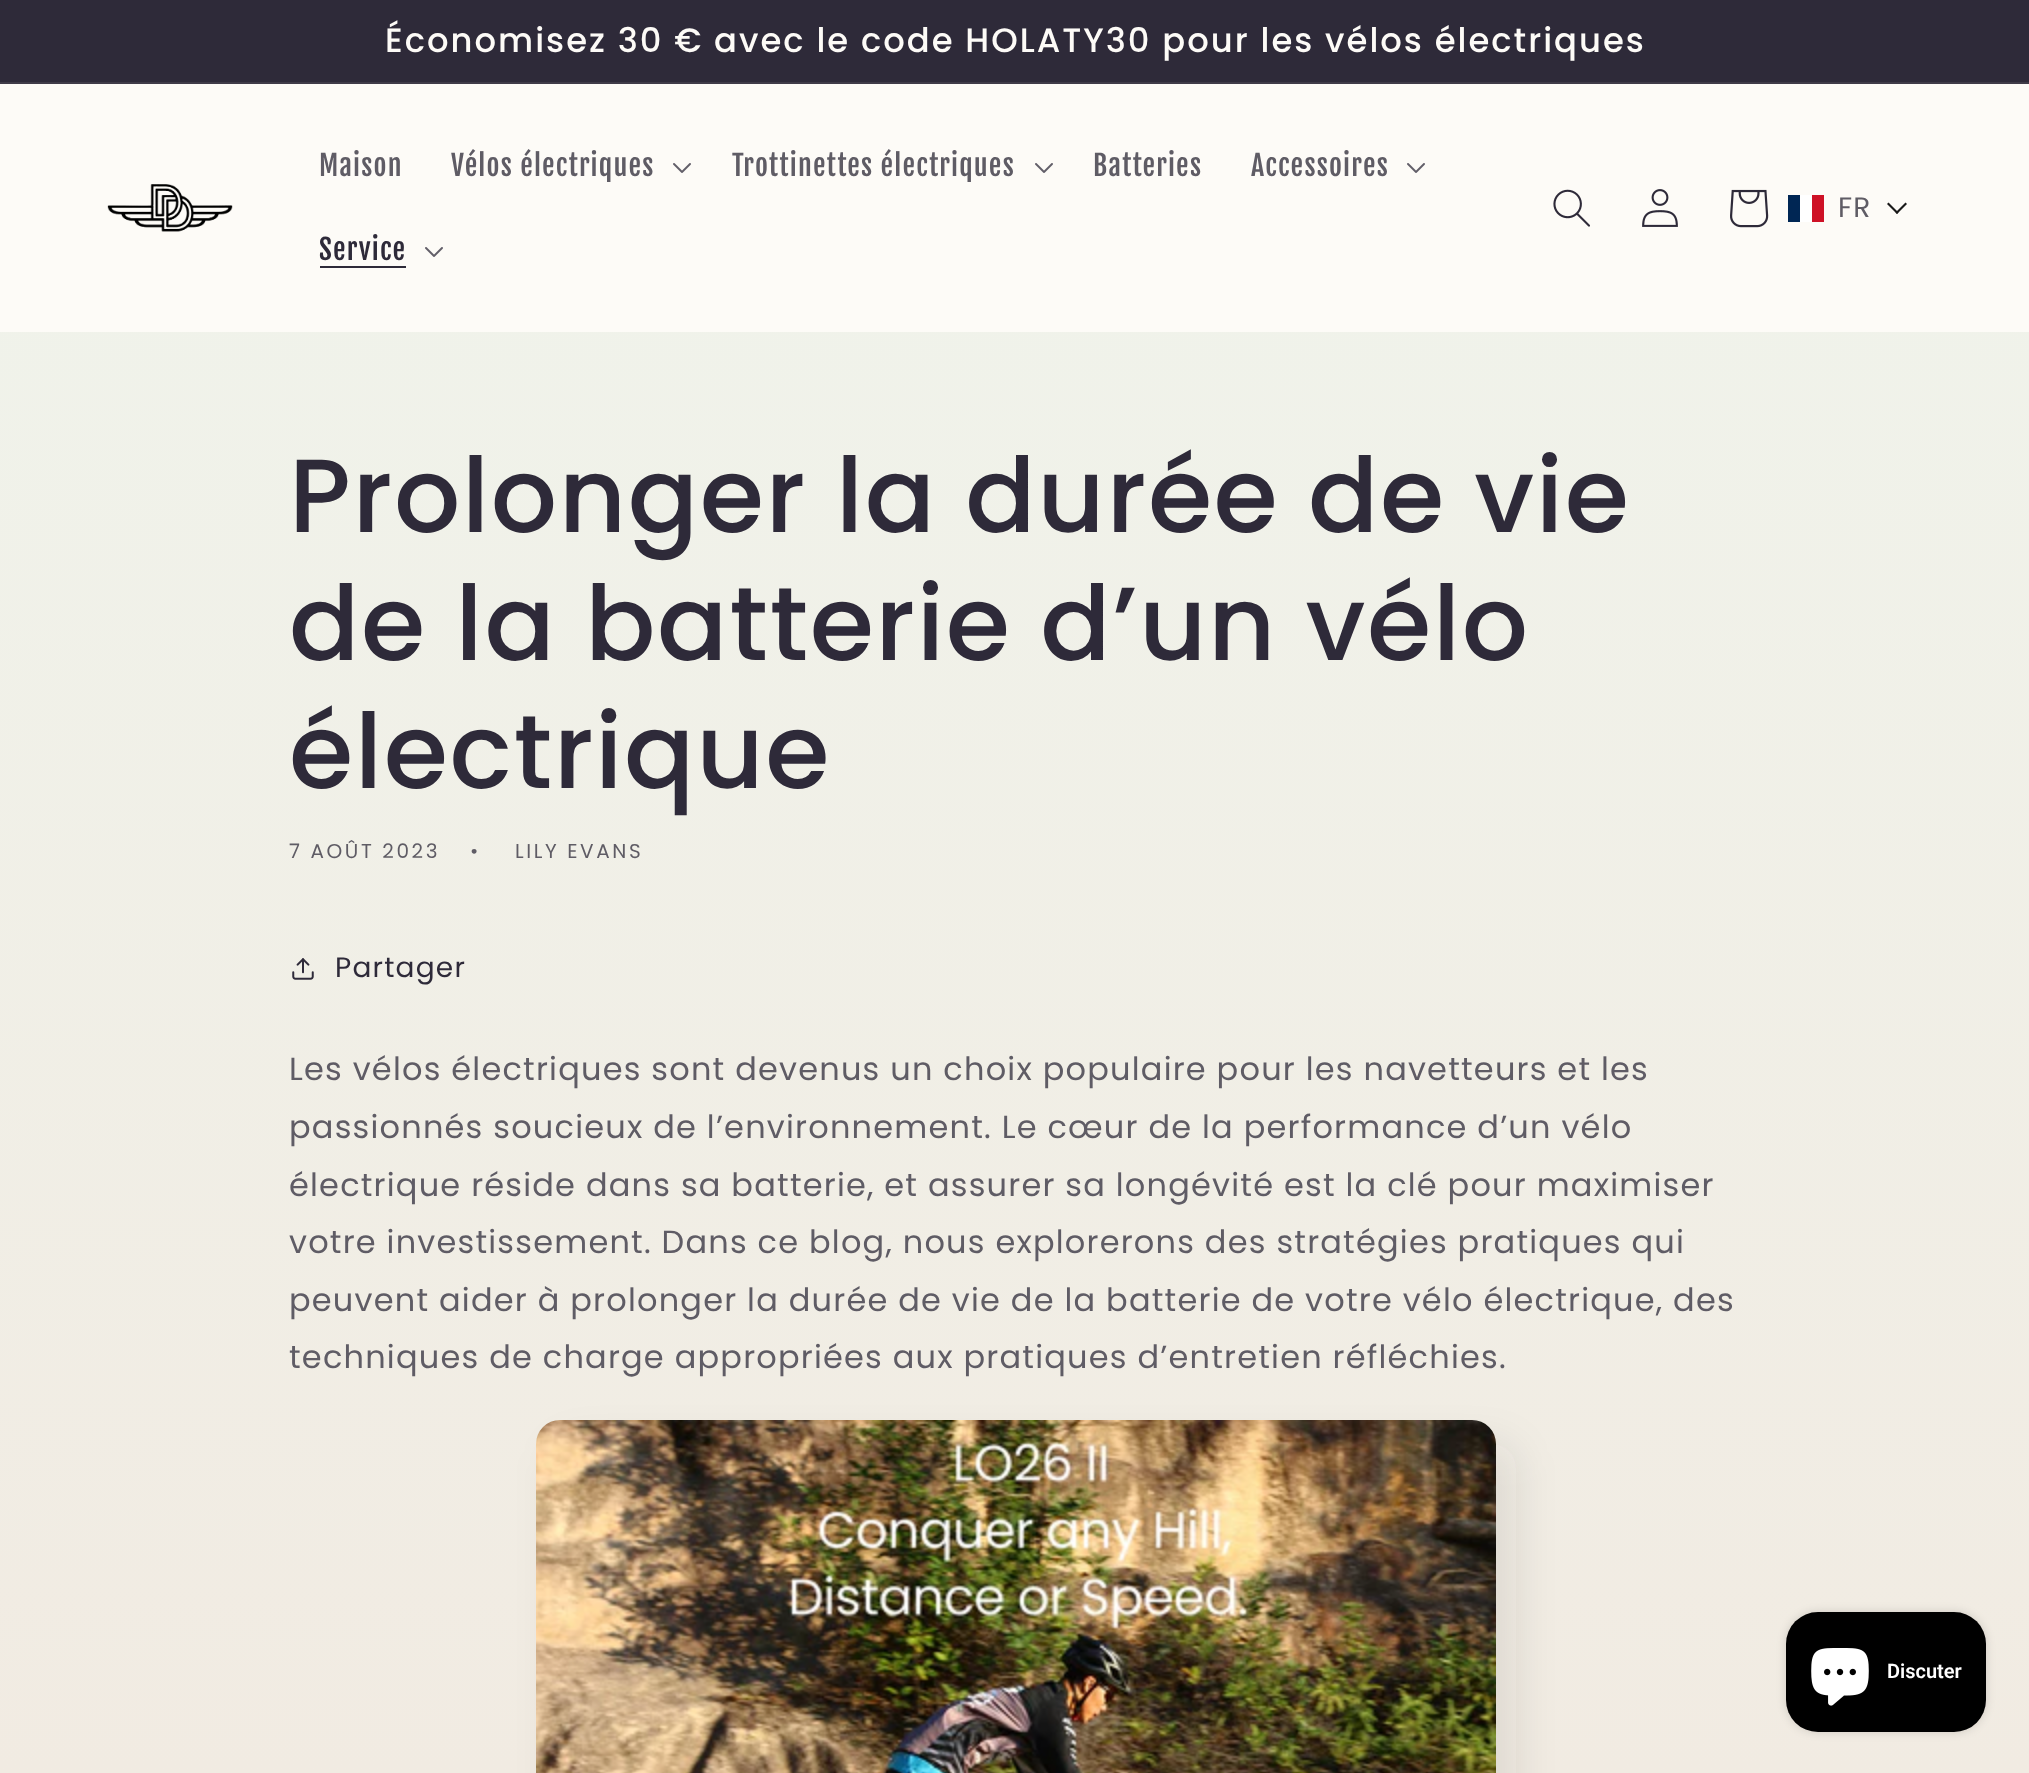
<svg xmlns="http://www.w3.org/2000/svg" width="2029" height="1773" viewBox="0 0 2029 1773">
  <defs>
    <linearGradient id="g1" gradientUnits="userSpaceOnUse" x1="1015" y1="0" x2="1015" y2="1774"><stop offset="0" stop-color="#f0f4ec"/><stop offset="1" stop-color="#f1ebe2"/></linearGradient>
    <filter id="blur1" x="-50%" y="-200%" width="200%" height="500%"><feGaussianBlur stdDeviation="20"/></filter>
    <filter id="blur2" x="-50%" y="-200%" width="200%" height="500%"><feGaussianBlur stdDeviation="5"/></filter>
  </defs>
  <rect width="100%" height="100%" fill="#ffffff"/>
  <rect x="0" y="332" width="2029" height="1441" fill="url(#g1)"/>
  <rect x="0" y="0" width="2029" height="82" fill="#2e2a39"/>
  <rect x="0" y="82" width="2029" height="2" fill="#3f3b48"/>
  <text x="385" y="52" font-family="Poppins" font-size="33.8" font-weight="500" letter-spacing="2" fill="#fdfbf7">Économisez 30 € avec le code HOLATY30 pour les vélos électriques</text>
  <rect x="0" y="84" width="2029" height="248" fill="#fdfbf7"/>
  <image x="107" y="184" width="126" height="48" href="img1.png"/>
  <text x="319" y="176" font-family="Fjalla One" font-size="28" letter-spacing="1.2" fill="#5f5c65">Maison</text>
  <text x="451" y="176" font-family="Fjalla One" font-size="28" letter-spacing="1.2" fill="#5f5c65">Vélos électriques</text>
  <image x="673" y="163" width="18" height="10" href="img2.png"/>
  <text x="732" y="176" font-family="Fjalla One" font-size="28" letter-spacing="1.2" fill="#5f5c65">Trottinettes électriques</text>
  <image x="1035" y="163" width="18" height="10" href="img2.png"/>
  <text x="1093" y="176" font-family="Fjalla One" font-size="28" letter-spacing="1.2" fill="#5f5c65">Batteries</text>
  <text x="1251" y="176" font-family="Fjalla One" font-size="28" letter-spacing="1.2" fill="#5f5c65">Accessoires</text>
  <image x="1407" y="163" width="18" height="10" href="img2.png"/>
  <text x="319" y="260" font-family="Fjalla One" font-size="28" letter-spacing="1.2" fill="#2e2a39">Service</text>
  <rect x="320" y="266" width="86" height="2" fill="#2e2a39"/>
  <image x="425" y="247" width="18" height="10" href="img2.png"/>
  <image x="1553" y="189" width="37" height="38" href="img3.png"/>
  <image x="1642" y="189" width="36" height="38" href="img4.png"/>
  <image x="1730" y="189" width="39" height="39" href="img5.png"/>
  <rect x="1800" y="195" width="12" height="27" fill="#ffffff"/>
  <rect x="1788" y="195" width="12" height="27" fill="#002654"/>
  <rect x="1812" y="195" width="12" height="27" fill="#ce1126"/>
  <text x="1838" y="217" font-family="Poppins" font-size="28" letter-spacing="1.2" fill="#5f5c65">FR</text>
  <path d="M1905.5 202.5L1907 204L1897 214L1895.5 212.5Z" fill="#191919"/>
  <path d="M1888.5 202.5L1898.5 212.5L1897 214L1887 204Z" fill="#191919"/>
  <text x="289" y="532" font-family="Poppins" font-size="104" font-weight="500" letter-spacing="1.55" fill="#2e2a39">Prolonger la durée de vie</text>
  <text x="289" y="660" font-family="Poppins" font-size="104" font-weight="500" letter-spacing="1.55" fill="#2e2a39">de la batterie d’un vélo</text>
  <text x="289" y="788" font-family="Poppins" font-size="104" font-weight="500" letter-spacing="1.55" fill="#2e2a39">électrique</text>
  <text x="289" y="858" font-family="Poppins" font-size="20" letter-spacing="2.6" fill="#5f5c65">7 AOÛT 2023</text>
  <text x="470" y="858" font-family="Poppins" font-size="20" letter-spacing="2.6" fill="#5f5c65">•</text>
  <text x="515" y="858" font-family="Poppins" font-size="20" letter-spacing="2.6" fill="#5f5c65">LILY EVANS</text>
  <image x="292" y="958" width="22" height="22" href="img6.png"/>
  <text x="335" y="977" font-family="Poppins" font-size="28" letter-spacing="1.2" fill="#2e2a39">Partager</text>
  <text x="289" y="1080" font-family="Poppins" font-size="32" letter-spacing="1.2" fill="#5f5c65">Les vélos électriques sont devenus un choix populaire pour les navetteurs et les</text>
  <text x="289" y="1138" font-family="Poppins" font-size="32" letter-spacing="1.2" fill="#5f5c65">passionnés soucieux de l’environnement. Le cœur de la performance d’un vélo</text>
  <text x="289" y="1196" font-family="Poppins" font-size="32" letter-spacing="1.2" fill="#5f5c65">électrique réside dans sa batterie, et assurer sa longévité est la clé pour maximiser</text>
  <text x="289" y="1253" font-family="Poppins" font-size="32" letter-spacing="1.2" fill="#5f5c65">votre investissement. Dans ce blog, nous explorerons des stratégies pratiques qui</text>
  <text x="289" y="1311" font-family="Poppins" font-size="32" letter-spacing="1.2" fill="#5f5c65">peuvent aider à prolonger la durée de vie de la batterie de votre vélo électrique, des</text>
  <text x="289" y="1368" font-family="Poppins" font-size="32" letter-spacing="1.2" fill="#5f5c65">techniques de charge appropriées aux pratiques d’entretien réfléchies.</text>
  <rect x="556" y="1444" width="960" height="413" rx="24" fill="#2e2a39" fill-opacity="0.1" filter="url(#blur1)"/>
  <image x="536" y="1420" width="960" height="353" href="img7.png"/>
  <rect x="1786" y="1612" width="200" height="120" rx="32" fill="#000000" fill-opacity="0.15" filter="url(#blur2)"/>
  <rect x="1786" y="1612" width="200" height="120" rx="32" fill="#000000"/>
  <image x="1811" y="1648" width="58" height="58" href="img8.png"/>
  <text x="1887" y="1678" font-family="Roboto" font-size="20" font-weight="600" fill="#ffffff">Discuter</text>
</svg>
